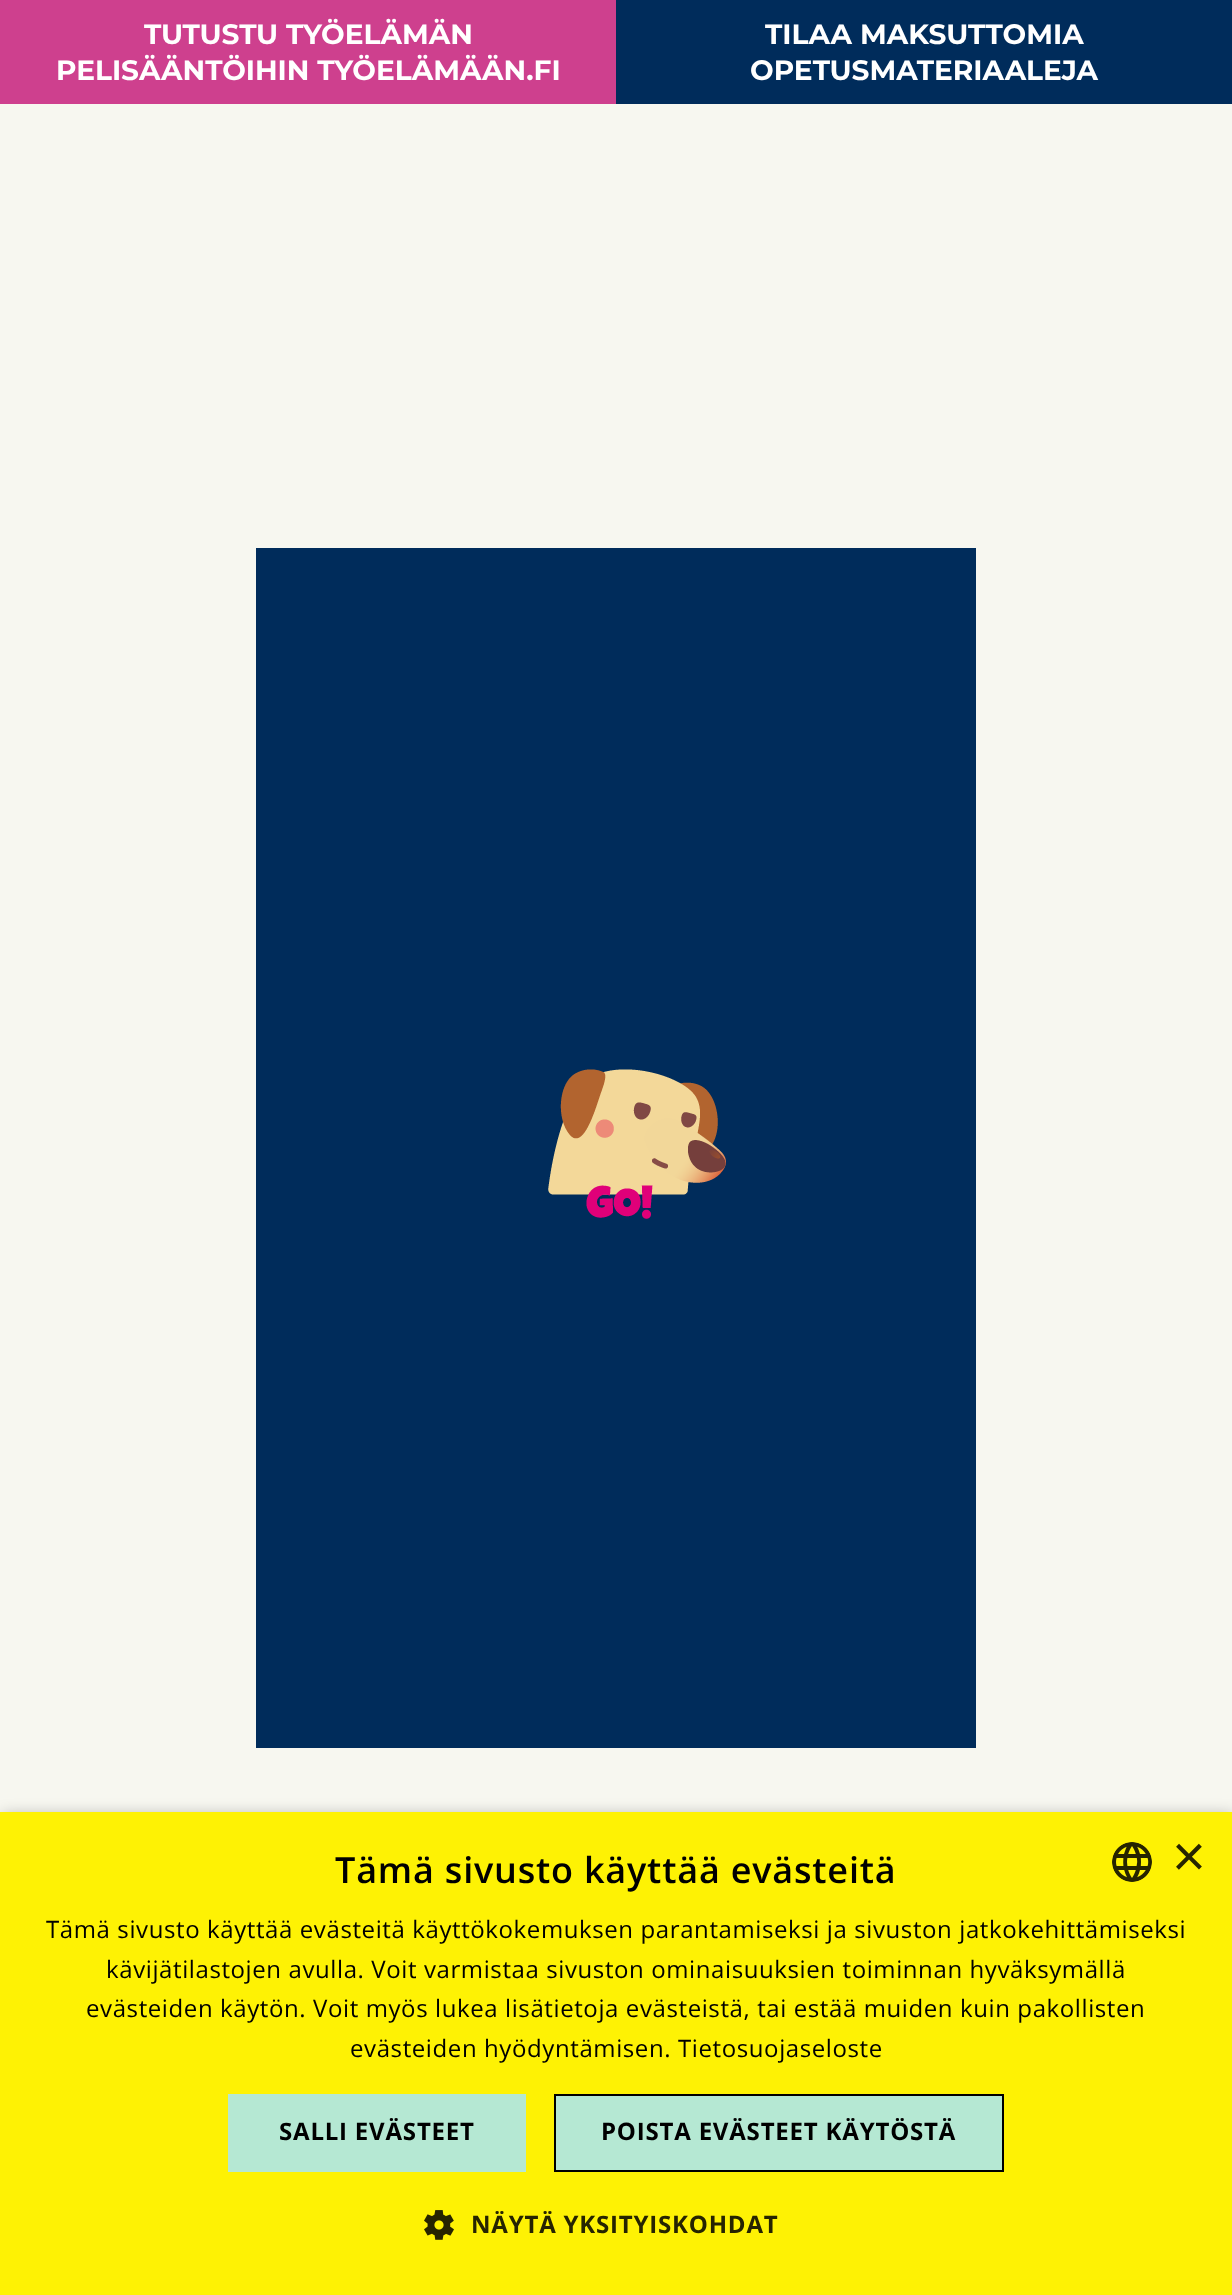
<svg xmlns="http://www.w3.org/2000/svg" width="1232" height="2295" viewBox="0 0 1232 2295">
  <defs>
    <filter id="blur1" x="-50%" y="-200%" width="200%" height="500%"><feGaussianBlur stdDeviation="8"/></filter>
  </defs>
  <rect width="100%" height="100%" fill="#f7f7f0"/>
  <rect x="0" y="0" width="616" height="104" fill="#ce408e"/>
  <text x="144" y="44" font-family="Montserrat" font-size="28" font-weight="bold" fill="#ffffff">TUTUSTU TYÖELÄMÄN</text>
  <text x="56" y="80" font-family="Montserrat" font-size="28" font-weight="bold" fill="#ffffff">PELISÄÄNTÖIHIN TYÖELÄMÄÄN.FI</text>
  <rect x="616" y="0" width="616" height="104" fill="#002c5b"/>
  <text x="765" y="44" font-family="Montserrat" font-size="28" font-weight="bold" fill="#ffffff">TILAA MAKSUTTOMIA</text>
  <text x="750" y="80" font-family="Montserrat" font-size="28" font-weight="bold" fill="#ffffff">OPETUSMATERIAALEJA</text>
  <rect x="256" y="548" width="720" height="1200" fill="#002c5b"/>
  <image x="548" y="1069" width="178" height="150" href="img1.png"/>
  <rect x="2" y="1816" width="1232" height="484" fill="#000000" fill-opacity="0.35" filter="url(#blur1)"/>
  <rect x="0" y="1812" width="1232" height="483" fill="#fef204"/>
  <text x="335" y="1883" font-family="Open Sans" font-size="36" font-weight="600" letter-spacing="0.8" fill="#000000">Tämä sivusto käyttää evästeitä</text>
  <image x="1112" y="1842" width="40" height="40" href="img2.png"/>
  <text x="1172" y="1876" font-family="Liberation Sans" font-size="58" fill="#262401">×</text>
  <text x="46" y="1938" font-family="Open Sans" font-size="24" letter-spacing="0.6" fill="#000000">Tämä sivusto käyttää evästeitä käyttökokemuksen parantamiseksi ja sivuston jatkokehittämiseksi</text>
  <text x="106" y="1978" font-family="Open Sans" font-size="24" letter-spacing="0.6" fill="#000000">kävijätilastojen avulla. Voit varmistaa sivuston ominaisuuksien toiminnan hyväksymällä</text>
  <text x="86" y="2017" font-family="Open Sans" font-size="24" letter-spacing="0.6" fill="#000000">evästeiden käytön. Voit myös lukea lisätietoja evästeistä, tai estää muiden kuin pakollisten</text>
  <text x="350" y="2057" font-family="Open Sans" font-size="24" letter-spacing="0.6" fill="#000000">evästeiden hyödyntämisen. Tietosuojaseloste</text>
  <rect x="228" y="2094" width="298" height="78" fill="#b5e8d3"/>
  <text x="279" y="2140" font-family="Open Sans" font-size="24" font-weight="bold" letter-spacing="0.8" fill="#000000">SALLI EVÄSTEET</text>
  <rect x="555" y="2095" width="448" height="76" fill="#b5e8d3" stroke="#000000" stroke-width="2"/>
  <text x="601" y="2140" font-family="Open Sans" font-size="24" font-weight="bold" letter-spacing="0.8" fill="#000000">POISTA EVÄSTEET KÄYTÖSTÄ</text>
  <image x="424" y="2210" width="30" height="30" href="img3.png"/>
  <text x="471" y="2233" font-family="Open Sans" font-size="24" font-weight="bold" letter-spacing="0.8" fill="#262401">NÄYTÄ YKSITYISKOHDAT</text>
</svg>
